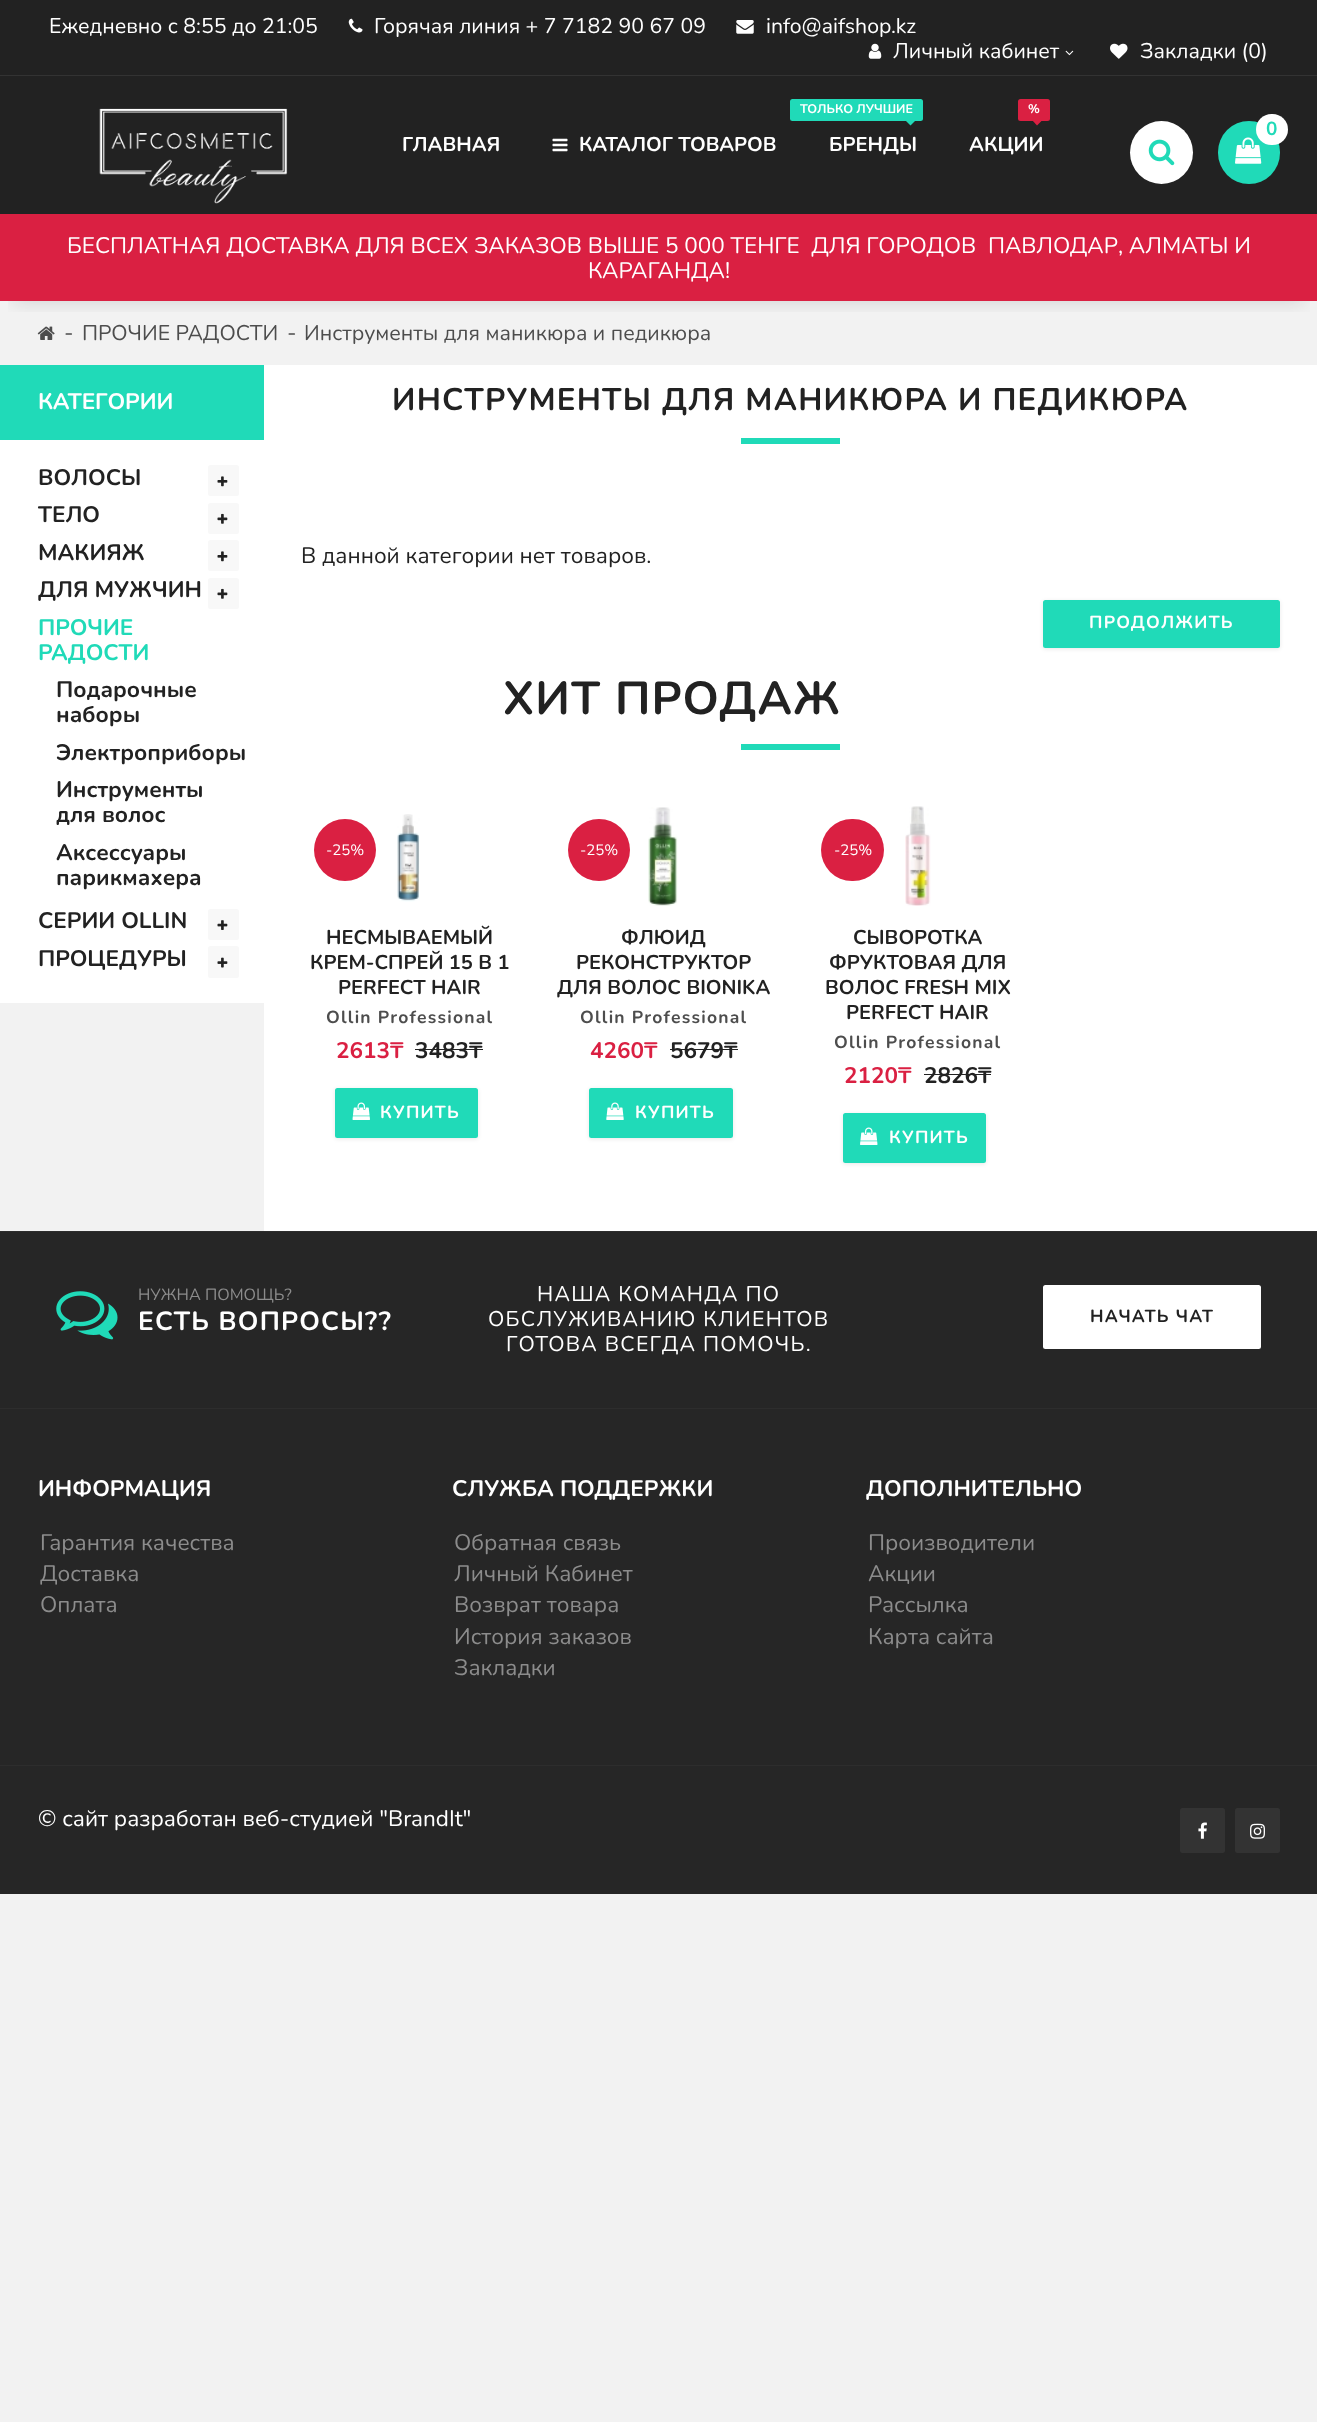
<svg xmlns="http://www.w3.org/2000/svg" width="1317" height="2422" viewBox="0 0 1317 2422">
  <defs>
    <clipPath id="clip1"><rect x="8" y="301" width="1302" height="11"/></clipPath>
    <filter id="blur1" x="-50%" y="-200%" width="200%" height="500%"><feGaussianBlur stdDeviation="9.5"/></filter>
    <filter id="blur2" x="-50%" y="-200%" width="200%" height="500%"><feGaussianBlur stdDeviation="2"/></filter>
  </defs>
  <rect width="100%" height="100%" fill="#f2f2f2"/>
  <rect x="0" y="0" width="1317" height="214" fill="#222222"/>
  <rect x="0" y="75" width="1317" height="1" fill="#333333"/>
  <text x="49" y="33" font-family="Nunito" font-size="21.25" fill="#ffffff">Ежедневно с 8:55 до 21:05</text>
  <image x="348" y="18" width="15" height="15" href="img1.png"/>
  <text x="374" y="33" font-family="Nunito" font-size="21.25" fill="#ffffff">Горячая линия + 7 7182 90 67 09</text>
  <image x="736" y="20" width="18" height="14" href="img2.png"/>
  <text x="766" y="33" font-family="Nunito" font-size="21.25" fill="#ffffff">info@aifshop.kz</text>
  <image x="868" y="43" width="14" height="16" href="img3.png"/>
  <text x="893" y="58" font-family="Nunito" font-size="21.25" fill="#ffffff">Личный кабинет</text>
  <image x="1065" y="50" width="9" height="6" href="img4.png"/>
  <image x="1110" y="43" width="18" height="16" href="img5.png"/>
  <text x="1140" y="58" font-family="Nunito" font-size="21.25" fill="#ffffff">Закладки (0)</text>
  <g clip-path="url(#clip1)">
    <rect x="13" y="101" width="1292" height="200" fill="#000000" fill-opacity="0.15" filter="url(#blur1)"/>
  </g>
  <image x="99" y="108" width="189" height="96" href="img6.png"/>
  <text x="402" y="151" font-family="Nunito" font-size="20" font-weight="bold" fill="#ffffff">ГЛАВНАЯ</text>
  <image x="552" y="138" width="16" height="14" href="img7.png"/>
  <text x="579" y="151" font-family="Nunito" font-size="20" font-weight="bold" fill="#ffffff">КАТАЛОГ ТОВАРОВ</text>
  <rect x="790" y="99" width="133" height="22" rx="2.5" fill="#20dab8"/>
  <text x="800" y="113" font-family="Nunito" font-size="12.5" font-weight="bold" fill="#ffffff">ТОЛЬКО ЛУЧШИЕ</text>
  <path d="M910.5 114.5L916 120L910.5 125.5L905 120Z" fill="#20dab8"/>
  <text x="829" y="151" font-family="Nunito" font-size="20" font-weight="bold" fill="#ffffff">БРЕНДЫ</text>
  <rect x="1018" y="99" width="32" height="22" rx="2.5" fill="#da2042"/>
  <text x="1028" y="113" font-family="Nunito" font-size="12.5" font-weight="bold" fill="#ffffff">%</text>
  <path d="M1037 114.5L1042.5 120L1037 125.5L1032 120Z" fill="#da2042"/>
  <text x="969" y="151" font-family="Nunito" font-size="20" font-weight="bold" fill="#ffffff">АКЦИИ</text>
  <circle cx="1161.5" cy="152.5" r="31.5" fill="#ffffff"/>
  <image x="1148" y="139" width="27" height="27" href="img8.png"/>
  <rect x="1218" y="121" width="62" height="63" rx="31" fill="#20dab8"/>
  <image x="1235" y="137" width="27" height="27" href="img9.png"/>
  <rect x="1256" y="114" width="32" height="31" rx="15.5" fill="#ffffff"/>
  <text x="1266" y="135" font-family="Nunito" font-size="19" font-weight="bold" fill="#20dab8">0</text>
  <rect x="0" y="214" width="1317" height="87" fill="#da2042"/>
  <text x="67" y="253" font-family="Nunito" font-size="22.5" fill="#ffffff" xml:space="preserve">БЕСПЛАТНАЯ ДОСТАВКА ДЛЯ ВСЕХ ЗАКАЗОВ ВЫШЕ 5 000 ТЕНГЕ  ДЛЯ ГОРОДОВ  ПАВЛОДАР, АЛМАТЫ И</text>
  <text x="588" y="278" font-family="Nunito" font-size="22.5" fill="#ffffff">КАРАГАНДА!</text>
  <image x="37" y="326" width="18" height="14" href="img10.png"/>
  <text x="64" y="340" font-family="Nunito" font-size="22.5" fill="#4d4d4d">-</text>
  <text x="82" y="340" font-family="Nunito" font-size="21.25" fill="#4d4d4d">ПРОЧИЕ РАДОСТИ</text>
  <text x="287" y="340" font-family="Nunito" font-size="22.5" fill="#4d4d4d">-</text>
  <text x="304" y="340" font-family="Nunito" font-size="21.25" fill="#4d4d4d">Инструменты для маникюра и педикюра</text>
  <rect x="0" y="440" width="264" height="563" fill="#ffffff"/>
  <rect x="0" y="365" width="264" height="75" fill="#20dab8"/>
  <text x="38" y="409" font-family="Nunito" font-size="22.5" font-weight="bold" fill="#ffffff">КАТЕГОРИИ</text>
  <text x="38" y="485" font-family="Nunito" font-size="22.5" font-weight="bold" fill="#222222">ВОЛОСЫ</text>
  <rect x="208" y="465" width="31" height="31" rx="2.5" fill="#f8f8f8"/>
  <image x="217" y="476" width="11" height="11" href="img11.png"/>
  <text x="38" y="522" font-family="Nunito" font-size="22.5" font-weight="bold" fill="#222222">ТЕЛО</text>
  <rect x="208" y="503" width="31" height="31" rx="2.5" fill="#f8f8f8"/>
  <image x="217" y="513" width="11" height="11" href="img12.png"/>
  <text x="38" y="560" font-family="Nunito" font-size="22.5" font-weight="bold" fill="#222222">МАКИЯЖ</text>
  <rect x="208" y="540" width="31" height="31" rx="2.5" fill="#f8f8f8"/>
  <image x="217" y="551" width="11" height="11" href="img11.png"/>
  <text x="38" y="597" font-family="Nunito" font-size="22.5" font-weight="bold" fill="#222222">ДЛЯ МУЖЧИН</text>
  <rect x="208" y="578" width="31" height="31" rx="2.5" fill="#f8f8f8"/>
  <image x="217" y="588" width="11" height="11" href="img12.png"/>
  <text x="38" y="635" font-family="Nunito" font-size="22.5" font-weight="bold" fill="#20dab8">ПРОЧИЕ</text>
  <text x="38" y="660" font-family="Nunito" font-size="22.5" font-weight="bold" fill="#20dab8">РАДОСТИ</text>
  <text x="56" y="697" font-family="Nunito" font-size="22.5" font-weight="bold" fill="#222222">Подарочные</text>
  <text x="56" y="722" font-family="Nunito" font-size="22.5" font-weight="bold" fill="#222222">наборы</text>
  <text x="56" y="760" font-family="Nunito" font-size="22.5" font-weight="bold" fill="#222222">Электроприборы</text>
  <text x="56" y="797" font-family="Nunito" font-size="22.5" font-weight="bold" fill="#222222">Инструменты</text>
  <text x="56" y="822" font-family="Nunito" font-size="22.5" font-weight="bold" fill="#222222">для волос</text>
  <text x="56" y="860" font-family="Nunito" font-size="22.5" font-weight="bold" fill="#222222">Аксессуары</text>
  <text x="56" y="885" font-family="Nunito" font-size="22.5" font-weight="bold" fill="#222222">парикмахера</text>
  <text x="38" y="928" font-family="Nunito" font-size="22.5" font-weight="bold" fill="#222222">СЕРИИ OLLIN</text>
  <rect x="208" y="909" width="31" height="31" rx="2.5" fill="#f8f8f8"/>
  <image x="217" y="920" width="11" height="10" href="img13.png"/>
  <text x="38" y="966" font-family="Nunito" font-size="22.5" font-weight="bold" fill="#222222">ПРОЦЕДУРЫ</text>
  <rect x="208" y="946" width="31" height="32" rx="2.5" fill="#f8f8f8"/>
  <image x="217" y="957" width="11" height="11" href="img14.png"/>
  <rect x="264" y="365" width="1053" height="866" fill="#ffffff"/>
  <text x="392" y="410" font-family="Nunito" font-size="31.25" font-weight="bold" letter-spacing="1.25" fill="#222222">ИНСТРУМЕНТЫ ДЛЯ МАНИКЮРА И ПЕДИКЮРА</text>
  <rect x="741" y="438" width="99" height="6" fill="#20dab8"/>
  <text x="301" y="563" font-family="Nunito" font-size="22.5" fill="#222222">В данной категории нет товаров.</text>
  <rect x="1043" y="601" width="237" height="48" rx="2.5" fill="#000000" fill-opacity="0.09" filter="url(#blur2)"/>
  <rect x="1044.5" y="601.5" width="234" height="45" rx="1" fill="#20dab8" stroke="#20dab8" stroke-width="3"/>
  <text x="1089" y="628" font-family="Nunito" font-size="17.5" font-weight="bold" letter-spacing="1.25" fill="#ffffff">ПРОДОЛЖИТЬ</text>
  <text x="503" y="714" font-family="Nunito" font-size="46.25" font-weight="bold" letter-spacing="1.25" fill="#222222">ХИТ ПРОДАЖ</text>
  <rect x="741" y="744" width="99" height="6" fill="#20dab8"/>
  <circle cx="345" cy="850" r="31" fill="#da2042"/>
  <text x="326" y="855" font-family="Nunito" font-size="15" fill="#ffffff">-25%</text>
  <image x="397" y="814" width="23" height="88" href="img15.png"/>
  <text x="326" y="944" font-family="Nunito" font-size="20" font-weight="bold" fill="#222222">НЕСМЫВАЕМЫЙ</text>
  <text x="310" y="969" font-family="Nunito" font-size="20" font-weight="bold" fill="#222222">КРЕМ-СПРЕЙ 15 В 1</text>
  <text x="338" y="994" font-family="Nunito" font-size="20" font-weight="bold" fill="#222222">PERFECT HAIR</text>
  <text x="326" y="1023" font-family="Nunito" font-size="17.5" font-weight="bold" letter-spacing="1.25" fill="#4d4d4d">Ollin Professional</text>
  <text x="336" y="1058" font-family="Nunito" font-size="22.5" font-weight="bold" fill="#da2042">2613₸</text>
  <text x="415" y="1058" font-family="Nunito" font-size="22.5" font-weight="bold" fill="#222222">3483₸</text>
  <rect x="415" y="1049" width="68" height="1" fill="#222222"/>
  <rect x="335" y="1089" width="143" height="50" rx="2.5" fill="#000000" fill-opacity="0.09" filter="url(#blur2)"/>
  <rect x="336.5" y="1089.5" width="140" height="47" rx="1" fill="#20dab8" stroke="#20dab8" stroke-width="3"/>
  <image x="352" y="1102" width="18" height="18" href="img16.png"/>
  <text x="380" y="1118" font-family="Nunito" font-size="17.5" font-weight="bold" letter-spacing="1.25" fill="#ffffff">КУПИТЬ</text>
  <circle cx="599" cy="850" r="31" fill="#da2042"/>
  <text x="580" y="855" font-family="Nunito" font-size="15" fill="#ffffff">-25%</text>
  <image x="648" y="807" width="30" height="99" href="img17.png"/>
  <text x="621" y="944" font-family="Nunito" font-size="20" font-weight="bold" fill="#222222">ФЛЮИД</text>
  <text x="576" y="969" font-family="Nunito" font-size="20" font-weight="bold" fill="#222222">РЕКОНСТРУКТОР</text>
  <text x="557" y="994" font-family="Nunito" font-size="20" font-weight="bold" fill="#222222">ДЛЯ ВОЛОС BIONIKA</text>
  <text x="580" y="1023" font-family="Nunito" font-size="17.5" font-weight="bold" letter-spacing="1.25" fill="#4d4d4d">Ollin Professional</text>
  <text x="590" y="1058" font-family="Nunito" font-size="22.5" font-weight="bold" fill="#da2042">4260₸</text>
  <text x="670" y="1058" font-family="Nunito" font-size="22.5" font-weight="bold" fill="#222222">5679₸</text>
  <rect x="670" y="1049" width="68" height="1" fill="#222222"/>
  <rect x="589" y="1089" width="144" height="50" rx="2.5" fill="#000000" fill-opacity="0.09" filter="url(#blur2)"/>
  <rect x="590.5" y="1089.5" width="141" height="47" rx="1" fill="#20dab8" stroke="#20dab8" stroke-width="3"/>
  <image x="606" y="1102" width="18" height="18" href="img18.png"/>
  <text x="635" y="1118" font-family="Nunito" font-size="17.5" font-weight="bold" letter-spacing="1.25" fill="#ffffff">КУПИТЬ</text>
  <rect x="821" y="819" width="63" height="62" rx="31" fill="#da2042"/>
  <text x="834" y="855" font-family="Nunito" font-size="15" fill="#ffffff">-25%</text>
  <image x="905" y="806" width="26" height="100" href="img19.png"/>
  <text x="853" y="944" font-family="Nunito" font-size="20" font-weight="bold" fill="#222222">СЫВОРОТКА</text>
  <text x="829" y="969" font-family="Nunito" font-size="20" font-weight="bold" fill="#222222">ФРУКТОВАЯ ДЛЯ</text>
  <text x="825" y="994" font-family="Nunito" font-size="20" font-weight="bold" fill="#222222">ВОЛОС FRESH MIX</text>
  <text x="846" y="1019" font-family="Nunito" font-size="20" font-weight="bold" fill="#222222">PERFECT HAIR</text>
  <text x="834" y="1048" font-family="Nunito" font-size="17.5" font-weight="bold" letter-spacing="1.25" fill="#4d4d4d">Ollin Professional</text>
  <text x="844" y="1083" font-family="Nunito" font-size="22.5" font-weight="bold" fill="#da2042">2120₸</text>
  <text x="924" y="1083" font-family="Nunito" font-size="22.5" font-weight="bold" fill="#222222">2826₸</text>
  <rect x="924" y="1074" width="67" height="1" fill="#222222"/>
  <rect x="843" y="1114" width="143" height="50" rx="2.5" fill="#000000" fill-opacity="0.09" filter="url(#blur2)"/>
  <rect x="844.5" y="1114.5" width="140" height="47" rx="1" fill="#20dab8" stroke="#20dab8" stroke-width="3"/>
  <image x="860" y="1127" width="18" height="18" href="img20.png"/>
  <text x="889" y="1143" font-family="Nunito" font-size="17.5" font-weight="bold" letter-spacing="1.25" fill="#ffffff">КУПИТЬ</text>
  <rect x="0" y="1232" width="1317" height="176" fill="#262626"/>
  <rect x="0" y="1231" width="1317" height="1" fill="#2d2d2d"/>
  <image x="56" y="1291" width="62" height="49" href="img21.png"/>
  <text x="138" y="1300" font-family="Nunito" font-size="16.25" fill="#8c8c8c">НУЖНА ПОМОЩЬ?</text>
  <text x="138" y="1330" font-family="Nunito" font-size="26.25" font-weight="bold" letter-spacing="1.25" fill="#ffffff">ЕСТЬ ВОПРОСЫ??</text>
  <text x="537" y="1301" font-family="Nunito" font-size="21.25" letter-spacing="1.25" fill="#ffffff">НАША КОМАНДА ПО</text>
  <text x="488" y="1326" font-family="Nunito" font-size="21.25" letter-spacing="1.25" fill="#ffffff">ОБСЛУЖИВАНИЮ КЛИЕНТОВ</text>
  <text x="506" y="1351" font-family="Nunito" font-size="21.25" letter-spacing="1.25" fill="#ffffff">ГОТОВА ВСЕГДА ПОМОЧЬ.</text>
  <rect x="1044.5" y="1286.5" width="215" height="61" rx="1" fill="#ffffff" stroke="#ffffff" stroke-width="3"/>
  <text x="1090" y="1322" font-family="Nunito" font-size="17.5" font-weight="bold" letter-spacing="1.25" fill="#222222">НАЧАТЬ ЧАТ</text>
  <rect x="0" y="1409" width="1317" height="356" fill="#262626"/>
  <rect x="0" y="1408" width="1317" height="1" fill="#2d2d2d"/>
  <text x="38" y="1496" font-family="Nunito" font-size="22.5" font-weight="bold" fill="#ffffff">ИНФОРМАЦИЯ</text>
  <text x="40" y="1550" font-family="Nunito" font-size="22.5" fill="#8c8c8c">Гарантия качества</text>
  <text x="40" y="1581" font-family="Nunito" font-size="22.5" fill="#8c8c8c">Доставка</text>
  <text x="40" y="1612" font-family="Nunito" font-size="22.5" fill="#8c8c8c">Оплата</text>
  <text x="452" y="1496" font-family="Nunito" font-size="22.5" font-weight="bold" fill="#ffffff">СЛУЖБА ПОДДЕРЖКИ</text>
  <text x="454" y="1550" font-family="Nunito" font-size="22.5" fill="#8c8c8c">Обратная связь</text>
  <text x="454" y="1581" font-family="Nunito" font-size="22.5" fill="#8c8c8c">Личный Кабинет</text>
  <text x="454" y="1612" font-family="Nunito" font-size="22.5" fill="#8c8c8c">Возврат товара</text>
  <text x="454" y="1644" font-family="Nunito" font-size="22.5" fill="#8c8c8c">История заказов</text>
  <text x="454" y="1675" font-family="Nunito" font-size="22.5" fill="#8c8c8c">Закладки</text>
  <text x="866" y="1496" font-family="Nunito" font-size="22.5" font-weight="bold" fill="#ffffff">ДОПОЛНИТЕЛЬНО</text>
  <text x="868" y="1550" font-family="Nunito" font-size="22.5" fill="#8c8c8c">Производители</text>
  <text x="868" y="1581" font-family="Nunito" font-size="22.5" fill="#8c8c8c">Акции</text>
  <text x="868" y="1612" font-family="Nunito" font-size="22.5" fill="#8c8c8c">Рассылка</text>
  <text x="868" y="1644" font-family="Nunito" font-size="22.5" fill="#8c8c8c">Карта сайта</text>
  <rect x="0" y="1766" width="1317" height="128" fill="#262626"/>
  <rect x="0" y="1765" width="1317" height="1" fill="#2d2d2d"/>
  <text x="38" y="1826" font-family="Nunito" font-size="22.5" fill="#ffffff">© сайт разработан веб-студией "BrandIt"</text>
  <rect x="1180" y="1808" width="45" height="45" rx="2.5" fill="#333333"/>
  <image x="1198" y="1822" width="9" height="17" href="img22.png"/>
  <rect x="1235" y="1808" width="45" height="45" rx="2.5" fill="#333333"/>
  <image x="1250" y="1823" width="15" height="16" href="img23.png"/>
</svg>
